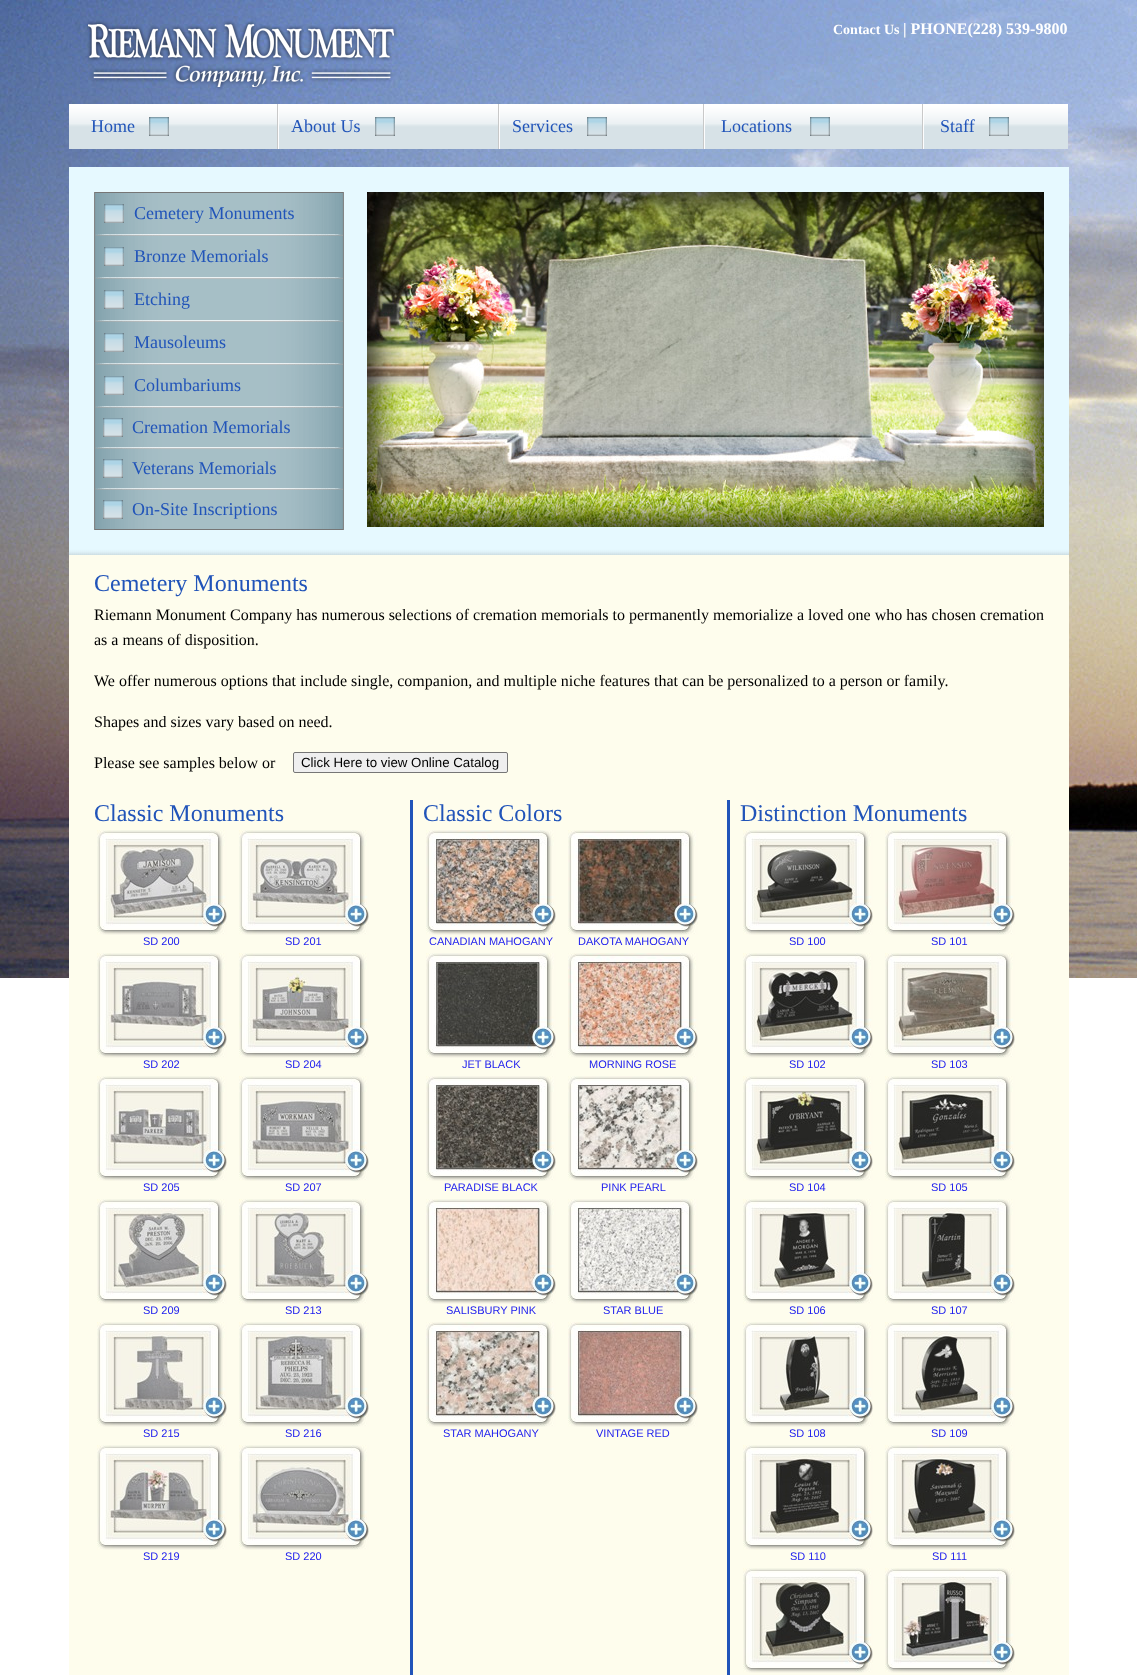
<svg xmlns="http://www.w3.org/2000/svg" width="1137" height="1675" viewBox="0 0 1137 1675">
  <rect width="100%" height="100%" fill="#ffffff"/>
  <image x="0" y="0" width="1137" height="978" href="img1.png"/>
  <image x="85" y="20" width="312" height="70" href="img2.png"/>
  <text x="833" y="34" font-family="Liberation Serif" font-size="14" font-weight="bold" fill="#ffffff">Contact Us</text>
  <text x="903" y="34" font-family="Liberation Serif" font-size="16" font-weight="bold" fill="#ffffff">| PHONE(228) 539-9800</text>
  <image x="69" y="104" width="999" height="45" href="img3.png"/>
  <text x="91" y="132" font-family="Liberation Serif" font-size="18" fill="#2154b9">Home</text>
  <image x="149" y="117" width="20" height="19" href="img4.png"/>
  <image x="277" y="104" width="2" height="45" href="img5.png"/>
  <text x="291" y="132" font-family="Liberation Serif" font-size="18" fill="#2154b9">About Us</text>
  <image x="375" y="117" width="20" height="19" href="img4.png"/>
  <image x="498" y="104" width="2" height="45" href="img5.png"/>
  <text x="512" y="132" font-family="Liberation Serif" font-size="18" fill="#2154b9">Services</text>
  <image x="587" y="117" width="20" height="19" href="img4.png"/>
  <image x="703" y="104" width="2" height="45" href="img5.png"/>
  <text x="721" y="132" font-family="Liberation Serif" font-size="18" fill="#2154b9">Locations</text>
  <image x="810" y="117" width="20" height="19" href="img4.png"/>
  <image x="922" y="104" width="2" height="45" href="img5.png"/>
  <text x="940" y="132" font-family="Liberation Serif" font-size="18" fill="#2154b9">Staff</text>
  <image x="989" y="117" width="20" height="19" href="img4.png"/>
  <rect x="69" y="167" width="1000" height="381" fill="#e6f9ff"/>
  <image x="94" y="192" width="250" height="338" href="img6.png"/>
  <rect x="95" y="192" width="248" height="1" fill="#767676"/>
  <image x="104" y="204" width="20" height="19" href="img4.png"/>
  <text x="134" y="219" font-family="Liberation Serif" font-size="18" fill="#2154b9">Cemetery Monuments</text>
  <image x="95" y="234" width="248" height="2" href="img7.png"/>
  <image x="104" y="247" width="20" height="19" href="img4.png"/>
  <text x="134" y="262" font-family="Liberation Serif" font-size="18" fill="#2154b9">Bronze Memorials</text>
  <image x="95" y="277" width="248" height="2" href="img7.png"/>
  <image x="104" y="290" width="20" height="19" href="img4.png"/>
  <text x="134" y="305" font-family="Liberation Serif" font-size="18" fill="#2154b9">Etching</text>
  <image x="95" y="320" width="248" height="2" href="img7.png"/>
  <image x="104" y="333" width="20" height="19" href="img4.png"/>
  <text x="134" y="348" font-family="Liberation Serif" font-size="18" fill="#2154b9">Mausoleums</text>
  <image x="95" y="363" width="248" height="2" href="img7.png"/>
  <image x="104" y="376" width="20" height="19" href="img4.png"/>
  <text x="134" y="391" font-family="Liberation Serif" font-size="18" fill="#2154b9">Columbariums</text>
  <image x="95" y="406" width="248" height="2" href="img7.png"/>
  <image x="103" y="418" width="20" height="19" href="img4.png"/>
  <text x="132" y="433" font-family="Liberation Serif" font-size="18" fill="#2154b9">Cremation Memorials</text>
  <image x="95" y="447" width="248" height="2" href="img7.png"/>
  <image x="103" y="459" width="20" height="19" href="img4.png"/>
  <text x="132" y="474" font-family="Liberation Serif" font-size="18" fill="#2154b9">Veterans Memorials</text>
  <image x="95" y="488" width="248" height="2" href="img7.png"/>
  <image x="103" y="500" width="20" height="19" href="img4.png"/>
  <text x="132" y="515" font-family="Liberation Serif" font-size="18" fill="#2154b9">On-Site Inscriptions</text>
  <rect x="95" y="529" width="248" height="1" fill="#767676"/>
  <image x="367" y="192" width="677" height="335" href="img8.png"/>
  <image x="69" y="548" width="1000" height="7" href="img9.png"/>
  <rect x="69" y="555" width="1000" height="1120" fill="#fefded"/>
  <text x="94" y="591" font-family="Liberation Serif" font-size="24" fill="#2154b9">Cemetery Monuments</text>
  <text x="94" y="620" font-family="Liberation Serif" font-size="16" fill="#000000">Riemann Monument Company has numerous selections of cremation memorials to permanently memorialize a loved one who has chosen cremation</text>
  <text x="94" y="645" font-family="Liberation Serif" font-size="16" fill="#000000">as a means of disposition.</text>
  <text x="94" y="686" font-family="Liberation Serif" font-size="16" fill="#000000">We offer numerous options that include single, companion, and multiple niche features that can be personalized to a person or family.</text>
  <text x="94" y="727" font-family="Liberation Serif" font-size="16" fill="#000000">Shapes and sizes vary based on need.</text>
  <text x="94" y="768" font-family="Liberation Serif" font-size="16" fill="#000000">Please see samples below or</text>
  <rect x="293.5" y="752.5" width="214" height="20" rx="1.5" fill="#efefef" stroke="#767676"/>
  <text x="301" y="767" font-family="Liberation Sans" font-size="13.3" fill="#000000">Click Here to view Online Catalog</text>
  <text x="94" y="821" font-family="Liberation Serif" font-size="24" fill="#2154b9">Classic Monuments</text>
  <image x="97" y="830" width="130" height="105" href="img10.png"/>
  <text x="143" y="945" font-family="Liberation Sans" font-size="11" fill="#2121ee">SD 200</text>
  <image x="239" y="830" width="130" height="105" href="img11.png"/>
  <text x="285" y="945" font-family="Liberation Sans" font-size="11" fill="#2121ee">SD 201</text>
  <image x="97" y="953" width="130" height="105" href="img12.png"/>
  <text x="143" y="1068" font-family="Liberation Sans" font-size="11" fill="#2121ee">SD 202</text>
  <image x="239" y="953" width="130" height="105" href="img13.png"/>
  <text x="285" y="1068" font-family="Liberation Sans" font-size="11" fill="#2121ee">SD 204</text>
  <image x="97" y="1076" width="130" height="105" href="img14.png"/>
  <text x="143" y="1191" font-family="Liberation Sans" font-size="11" fill="#2121ee">SD 205</text>
  <image x="239" y="1076" width="130" height="105" href="img15.png"/>
  <text x="285" y="1191" font-family="Liberation Sans" font-size="11" fill="#2121ee">SD 207</text>
  <image x="97" y="1199" width="130" height="105" href="img16.png"/>
  <text x="143" y="1314" font-family="Liberation Sans" font-size="11" fill="#2121ee">SD 209</text>
  <image x="239" y="1199" width="130" height="105" href="img17.png"/>
  <text x="285" y="1314" font-family="Liberation Sans" font-size="11" fill="#2121ee">SD 213</text>
  <image x="97" y="1322" width="130" height="105" href="img18.png"/>
  <text x="143" y="1437" font-family="Liberation Sans" font-size="11" fill="#2121ee">SD 215</text>
  <image x="239" y="1322" width="130" height="105" href="img19.png"/>
  <text x="285" y="1437" font-family="Liberation Sans" font-size="11" fill="#2121ee">SD 216</text>
  <image x="97" y="1445" width="130" height="105" href="img20.png"/>
  <text x="143" y="1560" font-family="Liberation Sans" font-size="11" fill="#2121ee">SD 219</text>
  <image x="239" y="1445" width="130" height="105" href="img21.png"/>
  <text x="285" y="1560" font-family="Liberation Sans" font-size="11" fill="#2121ee">SD 220</text>
  <rect x="410" y="800" width="3" height="875" fill="#2154b9"/>
  <text x="423" y="821" font-family="Liberation Serif" font-size="24" fill="#2154b9">Classic Colors</text>
  <image x="426" y="830" width="130" height="105" href="img22.png"/>
  <text x="429" y="945" font-family="Liberation Sans" font-size="11" fill="#2121ee">CANADIAN MAHOGANY</text>
  <image x="568" y="830" width="130" height="105" href="img23.png"/>
  <text x="578" y="945" font-family="Liberation Sans" font-size="11" fill="#2121ee">DAKOTA MAHOGANY</text>
  <image x="426" y="953" width="130" height="105" href="img24.png"/>
  <text x="462" y="1068" font-family="Liberation Sans" font-size="11" fill="#2121ee">JET BLACK</text>
  <image x="568" y="953" width="130" height="105" href="img25.png"/>
  <text x="589" y="1068" font-family="Liberation Sans" font-size="11" fill="#2121ee">MORNING ROSE</text>
  <image x="426" y="1076" width="130" height="105" href="img26.png"/>
  <text x="444" y="1191" font-family="Liberation Sans" font-size="11" fill="#2121ee">PARADISE BLACK</text>
  <image x="568" y="1076" width="130" height="105" href="img27.png"/>
  <text x="601" y="1191" font-family="Liberation Sans" font-size="11" fill="#2121ee">PINK PEARL</text>
  <image x="426" y="1199" width="130" height="105" href="img28.png"/>
  <text x="446" y="1314" font-family="Liberation Sans" font-size="11" fill="#2121ee">SALISBURY PINK</text>
  <image x="568" y="1199" width="130" height="105" href="img29.png"/>
  <text x="603" y="1314" font-family="Liberation Sans" font-size="11" fill="#2121ee">STAR BLUE</text>
  <image x="426" y="1322" width="130" height="105" href="img30.png"/>
  <text x="443" y="1437" font-family="Liberation Sans" font-size="11" fill="#2121ee">STAR MAHOGANY</text>
  <image x="568" y="1322" width="130" height="105" href="img31.png"/>
  <text x="596" y="1437" font-family="Liberation Sans" font-size="11" fill="#2121ee">VINTAGE RED</text>
  <rect x="727" y="800" width="3" height="875" fill="#2154b9"/>
  <text x="740" y="821" font-family="Liberation Serif" font-size="24" fill="#2154b9">Distinction Monuments</text>
  <image x="743" y="830" width="130" height="105" href="img32.png"/>
  <text x="789" y="945" font-family="Liberation Sans" font-size="11" fill="#2121ee">SD 100</text>
  <image x="885" y="830" width="130" height="105" href="img33.png"/>
  <text x="931" y="945" font-family="Liberation Sans" font-size="11" fill="#2121ee">SD 101</text>
  <image x="743" y="953" width="130" height="105" href="img34.png"/>
  <text x="789" y="1068" font-family="Liberation Sans" font-size="11" fill="#2121ee">SD 102</text>
  <image x="885" y="953" width="130" height="105" href="img35.png"/>
  <text x="931" y="1068" font-family="Liberation Sans" font-size="11" fill="#2121ee">SD 103</text>
  <image x="743" y="1076" width="130" height="105" href="img36.png"/>
  <text x="789" y="1191" font-family="Liberation Sans" font-size="11" fill="#2121ee">SD 104</text>
  <image x="885" y="1076" width="130" height="105" href="img37.png"/>
  <text x="931" y="1191" font-family="Liberation Sans" font-size="11" fill="#2121ee">SD 105</text>
  <image x="743" y="1199" width="130" height="105" href="img38.png"/>
  <text x="789" y="1314" font-family="Liberation Sans" font-size="11" fill="#2121ee">SD 106</text>
  <image x="885" y="1199" width="130" height="105" href="img39.png"/>
  <text x="931" y="1314" font-family="Liberation Sans" font-size="11" fill="#2121ee">SD 107</text>
  <image x="743" y="1322" width="130" height="105" href="img40.png"/>
  <text x="789" y="1437" font-family="Liberation Sans" font-size="11" fill="#2121ee">SD 108</text>
  <image x="885" y="1322" width="130" height="105" href="img41.png"/>
  <text x="931" y="1437" font-family="Liberation Sans" font-size="11" fill="#2121ee">SD 109</text>
  <image x="743" y="1445" width="130" height="105" href="img42.png"/>
  <text x="790" y="1560" font-family="Liberation Sans" font-size="11" fill="#2121ee">SD 110</text>
  <image x="885" y="1445" width="130" height="105" href="img43.png"/>
  <text x="932" y="1560" font-family="Liberation Sans" font-size="11" fill="#2121ee">SD 111</text>
  <image x="743" y="1568" width="130" height="105" href="img44.png"/>
  <image x="885" y="1568" width="130" height="105" href="img45.png"/>
</svg>
